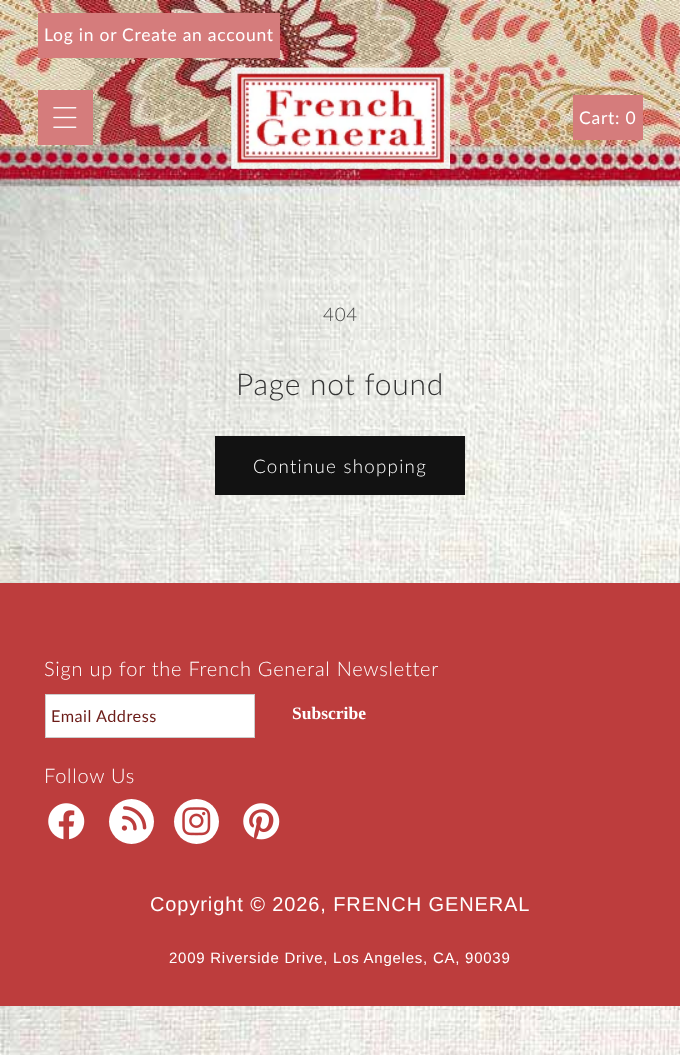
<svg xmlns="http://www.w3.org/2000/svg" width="680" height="1055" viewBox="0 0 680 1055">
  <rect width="100%" height="100%" fill="#ffffff"/>
  <image x="0" y="0" width="680" height="1055" href="img1.png"/>
  <rect x="38" y="13" width="242" height="45" fill="#d57c7c"/>
  <text x="44" y="41" font-family="Lato" font-size="17.5" letter-spacing="0.75" fill="#ffffff">Log in or</text>
  <text x="122" y="41" font-family="Lato" font-size="17.5" letter-spacing="0.75" fill="#ffffff">Create an account</text>
  <rect x="38" y="90" width="55" height="55" fill="#d57c7c"/>
  <image x="53" y="107" width="24" height="21" href="img2.png"/>
  <image x="231" y="67" width="219" height="102" href="img3.png"/>
  <rect x="573" y="95" width="70" height="45" fill="#d57c7c"/>
  <text x="579" y="124" font-family="Lato" font-size="17.5" letter-spacing="0.75" fill="#ffffff">Cart: 0</text>
  <text x="323" y="321" font-family="Lato" font-size="18.75" font-weight="300" letter-spacing="0.75" fill="#484847">404</text>
  <text x="236" y="395" font-family="Lato" font-size="30" font-weight="300" letter-spacing="0.75" fill="#333333">Page not found</text>
  <rect x="215" y="436" width="250" height="59" fill="#121212"/>
  <text x="253" y="473" font-family="Lato" font-size="18.75" font-weight="300" letter-spacing="1.25" fill="#ffffff">Continue shopping</text>
  <rect x="0" y="583" width="680" height="423" fill="#bd3d3d"/>
  <text x="44" y="676" font-family="Lato" font-size="20" font-weight="300" letter-spacing="0.75" fill="#ffffff">Sign up for the French General Newsletter</text>
  <rect x="45.5" y="694.5" width="209" height="43" fill="#ffffff" stroke="#cccccc"/>
  <text x="51" y="722" font-family="Lato" font-size="16.25" letter-spacing="0.5" fill="#6c1c18">Email Address</text>
  <text x="292" y="719" font-family="Liberation Serif" font-size="17.5" font-weight="bold" fill="#ffffff">Subscribe</text>
  <text x="44" y="783" font-family="Lato" font-size="20" font-weight="300" letter-spacing="0.75" fill="#ffffff">Follow Us</text>
  <image x="48" y="803" width="37" height="37" href="img4.png"/>
  <circle cx="131.5" cy="821.5" r="22.5" fill="#ffffff"/>
  <image x="121" y="806" width="26" height="25" href="img5.png"/>
  <circle cx="196.5" cy="821.5" r="22.5" fill="#ffffff"/>
  <image x="182" y="807" width="29" height="29" href="img6.png"/>
  <image x="243" y="803" width="37" height="37" href="img7.png"/>
  <text x="150" y="911" font-family="Liberation Sans" font-size="20" letter-spacing="0.9" fill="#ffffff">Copyright © 2026, FRENCH GENERAL</text>
  <text x="169" y="963" font-family="Liberation Sans" font-size="15" letter-spacing="0.75" fill="#ffffff">2009 Riverside Drive, Los Angeles, CA, 90039</text>
</svg>
